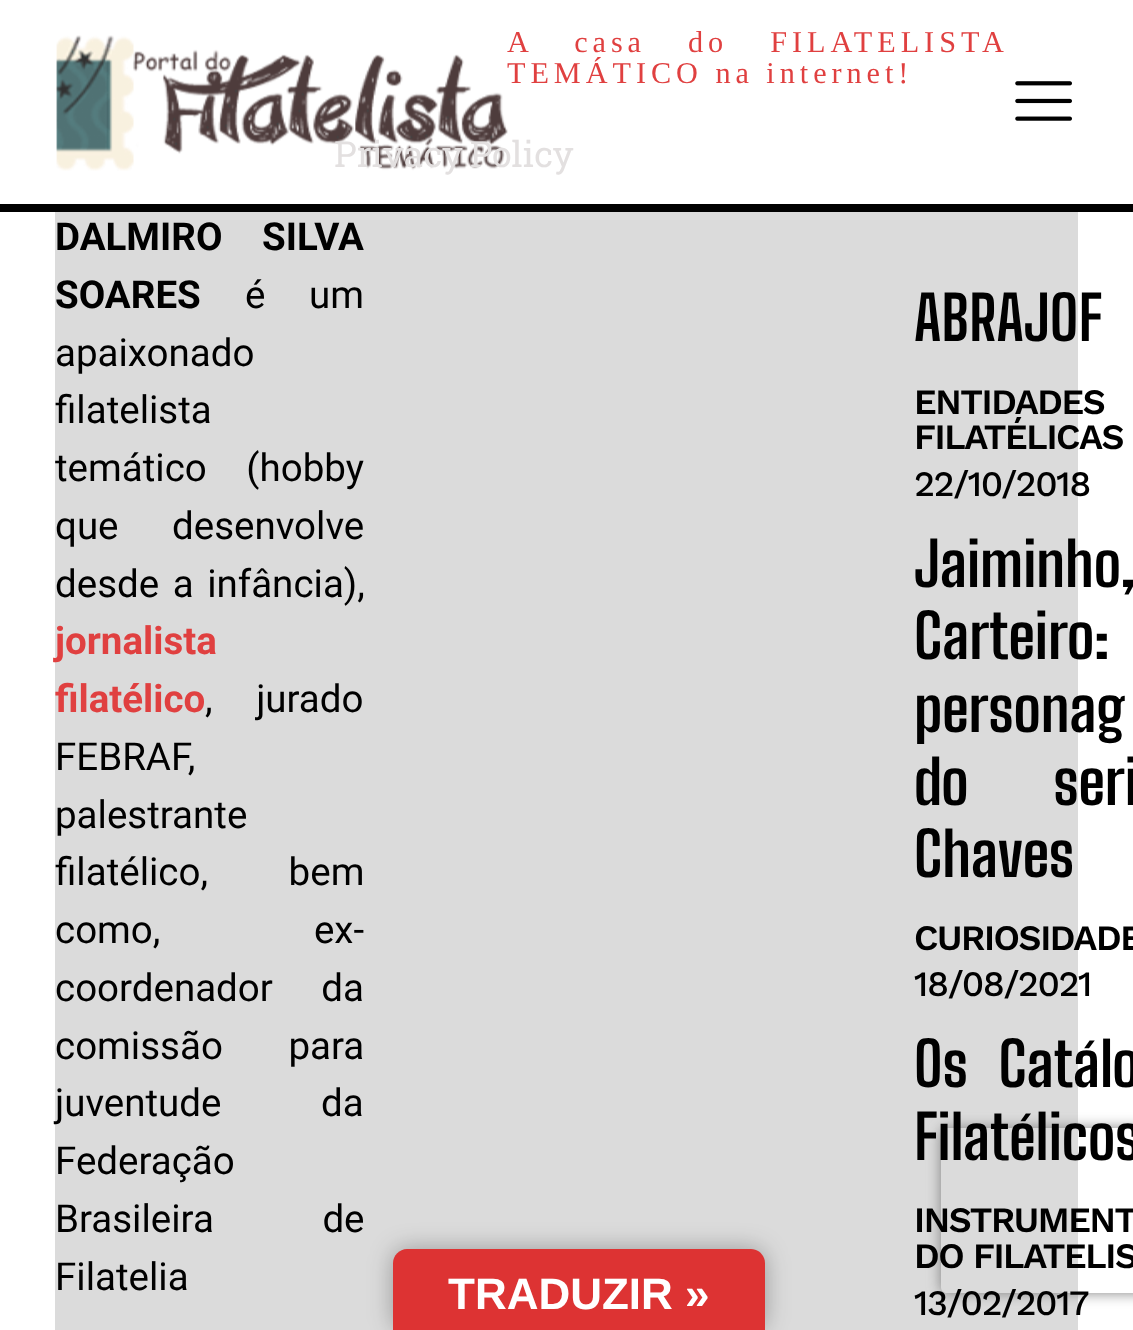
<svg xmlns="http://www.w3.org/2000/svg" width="1133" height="1330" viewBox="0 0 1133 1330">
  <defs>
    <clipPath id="clip1"><path d="M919 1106H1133V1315H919ZM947 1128H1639C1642.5 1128 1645 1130.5 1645 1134V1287C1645 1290.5 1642.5 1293 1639 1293H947C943.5 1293 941 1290.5 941 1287V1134C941 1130.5 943.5 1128 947 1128Z" clip-rule="evenodd"/></clipPath>
    <filter id="blur1" x="-50%" y="-200%" width="200%" height="500%"><feGaussianBlur stdDeviation="7"/></filter>
    <filter id="blur2" x="-50%" y="-200%" width="200%" height="500%"><feGaussianBlur stdDeviation="12.5"/></filter>
  </defs>
  <rect width="100%" height="100%" fill="#ffffff"/>
  <rect x="0" y="204" width="1133" height="8" fill="#000000"/>
  <image x="56" y="35" width="452" height="136" href="img1.png"/>
  <text x="507" y="52" word-spacing="29.5" font-family="Liberation Serif" font-size="30.25" letter-spacing="4.95" fill="#e04040">A casa do FILATELISTA</text>
  <text x="507" y="83" font-family="Liberation Serif" font-size="30.25" letter-spacing="4.95" fill="#e04040">TEMÁTICO na internet!</text>
  <image x="1015" y="81" width="57" height="40" href="img2.png"/>
  <rect x="55" y="212" width="1023" height="1118" fill="#dbdbdb"/>
  <text x="55" y="250" word-spacing="30" font-family="Roboto" font-size="38.5" font-weight="bold" fill="#000000">DALMIRO SILVA</text>
  <text x="55" y="308" font-family="Roboto" font-size="38.5" font-weight="bold" fill="#000000">SOARES</text>
  <text x="245" y="308" word-spacing="34" font-family="Roboto" font-size="38.5" fill="#000000">é um</text>
  <text x="55" y="366" font-family="Roboto" font-size="38.5" fill="#000000">apaixonado</text>
  <text x="55" y="423" font-family="Roboto" font-size="38.5" fill="#000000">filatelista</text>
  <text x="55" y="481" word-spacing="30" font-family="Roboto" font-size="38.5" fill="#000000">temático (hobby</text>
  <text x="55" y="539" word-spacing="44" font-family="Roboto" font-size="38.5" fill="#000000">que desenvolve</text>
  <text x="55" y="597" word-spacing="4" font-family="Roboto" font-size="38.5" fill="#000000">desde a infância),</text>
  <text x="55" y="654" font-family="Roboto" font-size="38.5" font-weight="bold" fill="#e04040">jornalista</text>
  <text x="55" y="712" font-family="Roboto" font-size="38.5" font-weight="bold" fill="#e04040">filatélico</text>
  <text x="205" y="712" word-spacing="34" font-family="Roboto" font-size="38.5" fill="#000000">, jurado</text>
  <text x="55" y="770" font-family="Roboto" font-size="38.5" fill="#000000">FEBRAF,</text>
  <text x="55" y="828" font-family="Roboto" font-size="38.5" fill="#000000">palestrante</text>
  <text x="55" y="885" word-spacing="71" font-family="Roboto" font-size="38.5" fill="#000000">filatélico, bem</text>
  <text x="55" y="943" word-spacing="144" font-family="Roboto" font-size="38.5" fill="#000000">como, ex-</text>
  <text x="55" y="1001" word-spacing="39" font-family="Roboto" font-size="38.5" fill="#000000">coordenador da</text>
  <text x="55" y="1059" word-spacing="56" font-family="Roboto" font-size="38.5" fill="#000000">comissão para</text>
  <text x="55" y="1116" word-spacing="90" font-family="Roboto" font-size="38.5" fill="#000000">juventude da</text>
  <text x="55" y="1174" font-family="Roboto" font-size="38.5" fill="#000000">Federação</text>
  <text x="55" y="1232" word-spacing="99" font-family="Roboto" font-size="38.5" fill="#000000">Brasileira de</text>
  <text x="55" y="1290" font-family="Roboto" font-size="38.5" fill="#000000">Filatelia</text>
  <text x="914" y="341" font-family="Big Shoulders Text" font-size="60.5" font-weight="bold" fill="#000000">ABRAJOF</text>
  <text x="914" y="414" font-family="Work Sans" font-size="35.75" font-weight="600" letter-spacing="-1.4" fill="#000000">ENTIDADES</text>
  <text x="914" y="449" font-family="Work Sans" font-size="35.75" font-weight="600" letter-spacing="-1.4" fill="#000000">FILATÉLICAS</text>
  <text x="914" y="496" font-family="Work Sans" font-size="35.75" font-weight="500" letter-spacing="-1.4" fill="#000000">22/10/2018</text>
  <text x="914" y="587" word-spacing="44" font-family="Big Shoulders Text" font-size="60.5" font-weight="bold" fill="#000000">Jaiminho,</text>
  <text x="914" y="659" word-spacing="26" font-family="Big Shoulders Text" font-size="60.5" font-weight="bold" fill="#000000">Carteiro:</text>
  <text x="914" y="732" font-family="Big Shoulders Text" font-size="60.5" font-weight="bold" fill="#000000">personag</text>
  <text x="914" y="805" word-spacing="72" font-family="Big Shoulders Text" font-size="60.5" font-weight="bold" fill="#000000">do seri</text>
  <text x="914" y="877" font-family="Big Shoulders Text" font-size="60.5" font-weight="bold" fill="#000000">Chaves</text>
  <text x="914" y="950" font-family="Work Sans" font-size="35.75" font-weight="600" letter-spacing="-1.4" fill="#000000">CURIOSIDADE</text>
  <text x="914" y="996" font-family="Work Sans" font-size="35.75" font-weight="500" letter-spacing="-1.4" fill="#000000">18/08/2021</text>
  <text x="914" y="1087" word-spacing="18" font-family="Big Shoulders Text" font-size="60.5" font-weight="bold" fill="#000000">Os Catálo</text>
  <g clip-path="url(#clip1)">
    <rect x="941" y="1128" width="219" height="165" rx="6" fill="#808080" filter="url(#blur1)"/>
  </g>
  <text x="914" y="1160" font-family="Big Shoulders Text" font-size="60.5" font-weight="bold" fill="#000000">Filatélicos</text>
  <text x="914" y="1232" font-family="Work Sans" font-size="35.75" font-weight="600" letter-spacing="-1.4" fill="#000000">INSTRUMENT</text>
  <text x="914" y="1268" font-family="Work Sans" font-size="35.75" font-weight="600" letter-spacing="-1.4" fill="#000000">DO FILATELIS</text>
  <text x="914" y="1315" font-family="Work Sans" font-size="35.75" font-weight="500" letter-spacing="-1.4" fill="#000000">13/02/2017</text>
  <text x="334" y="167" word-spacing="-2" font-family="Roboto Slab" font-size="35.75" fill="#e3e0e0">Privacy Policy</text>
  <rect x="393" y="1249" width="372" height="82" rx="14" fill="#000000" fill-opacity="0.3" filter="url(#blur2)"/>
  <path d="M407 1249H751C758.5 1249 765 1255.5 765 1263V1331H393V1263C393 1255.5 399.5 1249 407 1249Z" fill="#dd3333"/>
  <text x="448" y="1309" font-family="Liberation Sans" font-size="44" font-weight="bold" fill="#ffffff">TRADUZIR »</text>
</svg>
